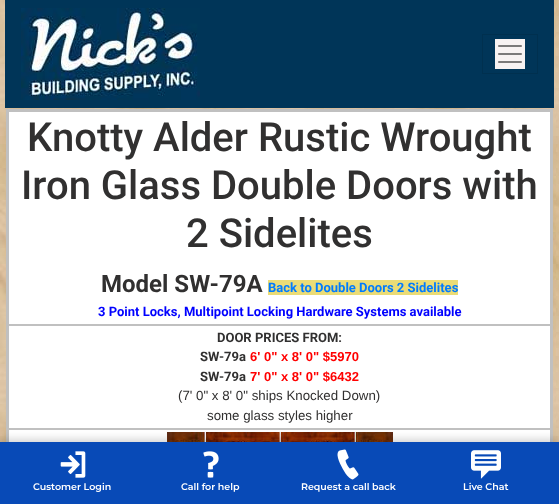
<svg xmlns="http://www.w3.org/2000/svg" width="559" height="504" viewBox="0 0 559 504">
  <defs>
    <filter id="blur1" x="-50%" y="-200%" width="200%" height="500%"><feGaussianBlur stdDeviation="5"/></filter>
  </defs>
  <rect width="100%" height="100%" fill="#ffffff"/>
  <image x="0" y="0" width="559" height="442" href="img1.png"/>
  <rect x="5" y="0" width="549" height="108" fill="#003558"/>
  <image x="21" y="8" width="179" height="92" href="img2.png"/>
  <rect x="482.5" y="34.5" width="55" height="39" fill="none" stroke="#00304f"/>
  <rect x="495" y="39" width="30" height="30" fill="#f7f2f2"/>
  <image x="498" y="45" width="24" height="18" href="img3.png"/>
  <rect x="9" y="112" width="541" height="330" fill="#ffffff"/>
  <rect x="7" y="110" width="545" height="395" fill="none" stroke="#c0c0c0" stroke-width="2"/>
  <rect x="8.5" y="111.5" width="542" height="213" fill="none" stroke="#c0c0c0"/>
  <text x="27" y="151" font-family="Roboto" font-size="40" font-weight="500" fill="#313030">Knotty Alder Rustic Wrought</text>
  <text x="21" y="199" font-family="Roboto" font-size="40" font-weight="500" fill="#313030">Iron Glass Double Doors with</text>
  <text x="186" y="247" font-family="Roboto" font-size="40" font-weight="500" fill="#313030">2 Sidelites</text>
  <text x="101" y="292" font-family="Roboto" font-size="24" font-weight="bold" fill="#313030">Model SW-79A</text>
  <rect x="268" y="280" width="190" height="15" fill="#ebdc76"/>
  <text x="268" y="292" font-family="Roboto" font-size="13" font-weight="bold" fill="#007bff">Back to Double Doors 2 Sidelites</text>
  <text x="98" y="316" font-family="Roboto" font-size="13" font-weight="bold" fill="#0000ff">3 Point Locks, Multipoint Locking Hardware Systems available</text>
  <rect x="8.5" y="325.5" width="542" height="103" fill="none" stroke="#c0c0c0"/>
  <text x="217" y="342" font-family="Roboto" font-size="13" font-weight="bold" fill="#313030">DOOR PRICES FROM:</text>
  <text x="200" y="361" font-family="Roboto" font-size="13" font-weight="bold" fill="#313030">SW-79a</text>
  <text x="250" y="361" font-family="Liberation Sans" font-size="13" font-weight="bold" fill="#ff0000">6' 0" x 8' 0" $5970</text>
  <text x="200" y="381" font-family="Roboto" font-size="13" font-weight="bold" fill="#313030">SW-79a</text>
  <text x="250" y="381" font-family="Liberation Sans" font-size="13" font-weight="bold" fill="#ff0000">7' 0" x 8' 0" $6432</text>
  <text x="178" y="400" font-family="Liberation Sans" font-size="13.3" fill="#313030">(7' 0" x 8' 0" ships Knocked Down)</text>
  <text x="207" y="420" font-family="Liberation Sans" font-size="13.3" fill="#313030">some glass styles higher</text>
  <rect x="8.5" y="429.5" width="542" height="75" fill="none" stroke="#c0c0c0"/>
  <image x="167" y="432" width="226" height="10" href="img4.png"/>
  <rect x="-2" y="440" width="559" height="62" fill="#000000" fill-opacity="0.2" filter="url(#blur1)"/>
  <rect x="0" y="442" width="559" height="62" fill="#084ab7"/>
  <image x="60" y="451" width="26" height="27" href="img5.png"/>
  <text x="33" y="490" font-family="Montserrat" font-size="9.5" font-weight="600" fill="#ffffff">Customer Login</text>
  <image x="203" y="451" width="16" height="27" href="img6.png"/>
  <text x="181" y="490" font-family="Montserrat" font-size="9.5" font-weight="600" fill="#ffffff">Call for help</text>
  <image x="337" y="449" width="22" height="31" href="img7.png"/>
  <text x="301" y="490" font-family="Montserrat" font-size="9.5" font-weight="600" fill="#ffffff">Request a call back</text>
  <image x="471" y="450" width="30" height="29" href="img8.png"/>
  <text x="463" y="490" font-family="Montserrat" font-size="9.5" font-weight="600" fill="#ffffff">Live Chat</text>
</svg>
